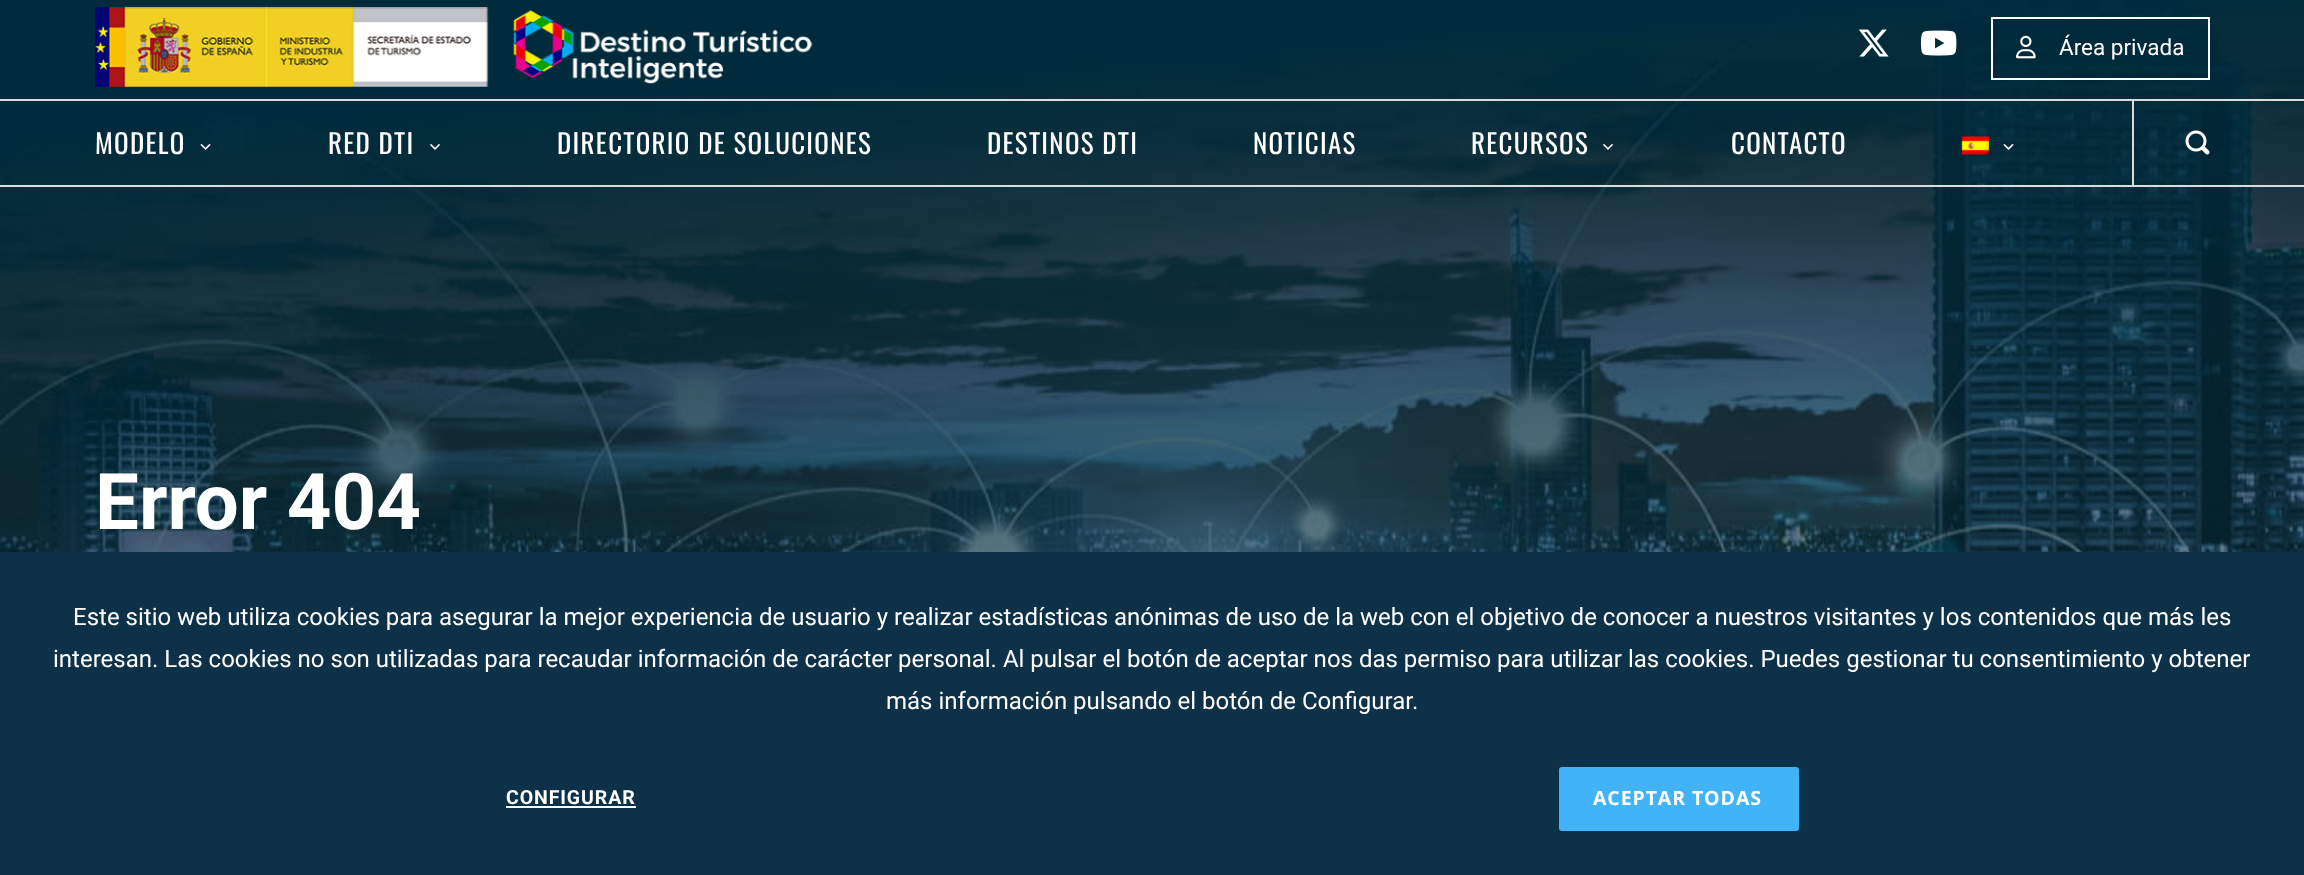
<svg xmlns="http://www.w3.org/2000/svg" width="2304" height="875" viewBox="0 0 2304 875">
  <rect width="100%" height="100%" fill="#ffffff"/>
  <image x="0" y="0" width="2304" height="552" href="img11.png"/>
  <image x="95" y="7" width="718" height="80" href="img1.png"/>
  <image x="1858" y="29" width="31" height="28" href="img2.png"/>
  <image x="1920" y="30" width="37" height="26" href="img3.png"/>
  <rect x="1992" y="18" width="217" height="61" fill="none" stroke="#ffffff" stroke-width="2"/>
  <image x="2016" y="35" width="20" height="24" href="img4.png"/>
  <text x="2059" y="55" font-family="Roboto" font-size="22.5" fill="#ffffff">Área privada</text>
  <rect x="0" y="99" width="2304" height="2" fill="#dcdcdc"/>
  <rect x="0" y="185" width="2304" height="2" fill="#dcdcdc"/>
  <text x="95" y="154" font-family="Oswald" font-size="27" letter-spacing="1.3" fill="#ffffff">MODELO</text>
  <image x="200" y="144" width="11" height="6" href="img5.png"/>
  <text x="328" y="154" font-family="Oswald" font-size="27" letter-spacing="1.3" fill="#ffffff">RED DTI</text>
  <image x="429" y="144" width="12" height="6" href="img6.png"/>
  <text x="557" y="154" font-family="Oswald" font-size="27" letter-spacing="1.3" fill="#ffffff">DIRECTORIO DE SOLUCIONES</text>
  <text x="987" y="154" font-family="Oswald" font-size="27" letter-spacing="1.3" fill="#ffffff">DESTINOS DTI</text>
  <text x="1253" y="154" font-family="Oswald" font-size="27" letter-spacing="1.3" fill="#ffffff">NOTICIAS</text>
  <text x="1471" y="154" font-family="Oswald" font-size="27" letter-spacing="1.3" fill="#ffffff">RECURSOS</text>
  <image x="1602" y="144" width="12" height="6" href="img7.png"/>
  <text x="1731" y="154" font-family="Oswald" font-size="27" letter-spacing="1.3" fill="#ffffff">CONTACTO</text>
  <image x="1961" y="136" width="28" height="19" href="img8.png"/>
  <image x="2003" y="144" width="11" height="6" href="img9.png"/>
  <rect x="2132" y="101" width="2" height="84" fill="#dcdcdc"/>
  <image x="2185" y="130" width="25" height="25" href="img10.png"/>
  <text x="95" y="529" font-family="Roboto" font-size="78" font-weight="bold" fill="#ffffff">Error 404</text>
  <rect x="0" y="552" width="2304" height="323" fill="#0d3149"/>
  <text x="73" y="625" font-family="Roboto" font-size="24" fill="#ffffff">Este sitio web utiliza cookies para asegurar la mejor experiencia de usuario y realizar estadísticas anónimas de uso de la web con el objetivo de conocer a nuestros visitantes y los contenidos que más les</text>
  <text x="53" y="667" font-family="Roboto" font-size="24" fill="#ffffff">interesan. Las cookies no son utilizadas para recaudar información de carácter personal. Al pulsar el botón de aceptar nos das permiso para utilizar las cookies. Puedes gestionar tu consentimiento y obtener</text>
  <text x="886" y="709" font-family="Roboto" font-size="24" fill="#ffffff">más información pulsando el botón de Configurar.</text>
  <text x="506" y="804" font-family="Roboto" font-size="19.5" font-weight="bold" letter-spacing="0.9" fill="#ffffff">CONFIGURAR</text>
  <rect x="506" y="806" width="130" height="2" fill="#ffffff"/>
  <rect x="1559" y="767" width="240" height="64" rx="3" fill="#41b3f9"/>
  <text x="1593" y="805" font-family="Open Sans" font-size="19.5" font-weight="bold" letter-spacing="0.9" fill="#ffffff">ACEPTAR TODAS</text>
</svg>
